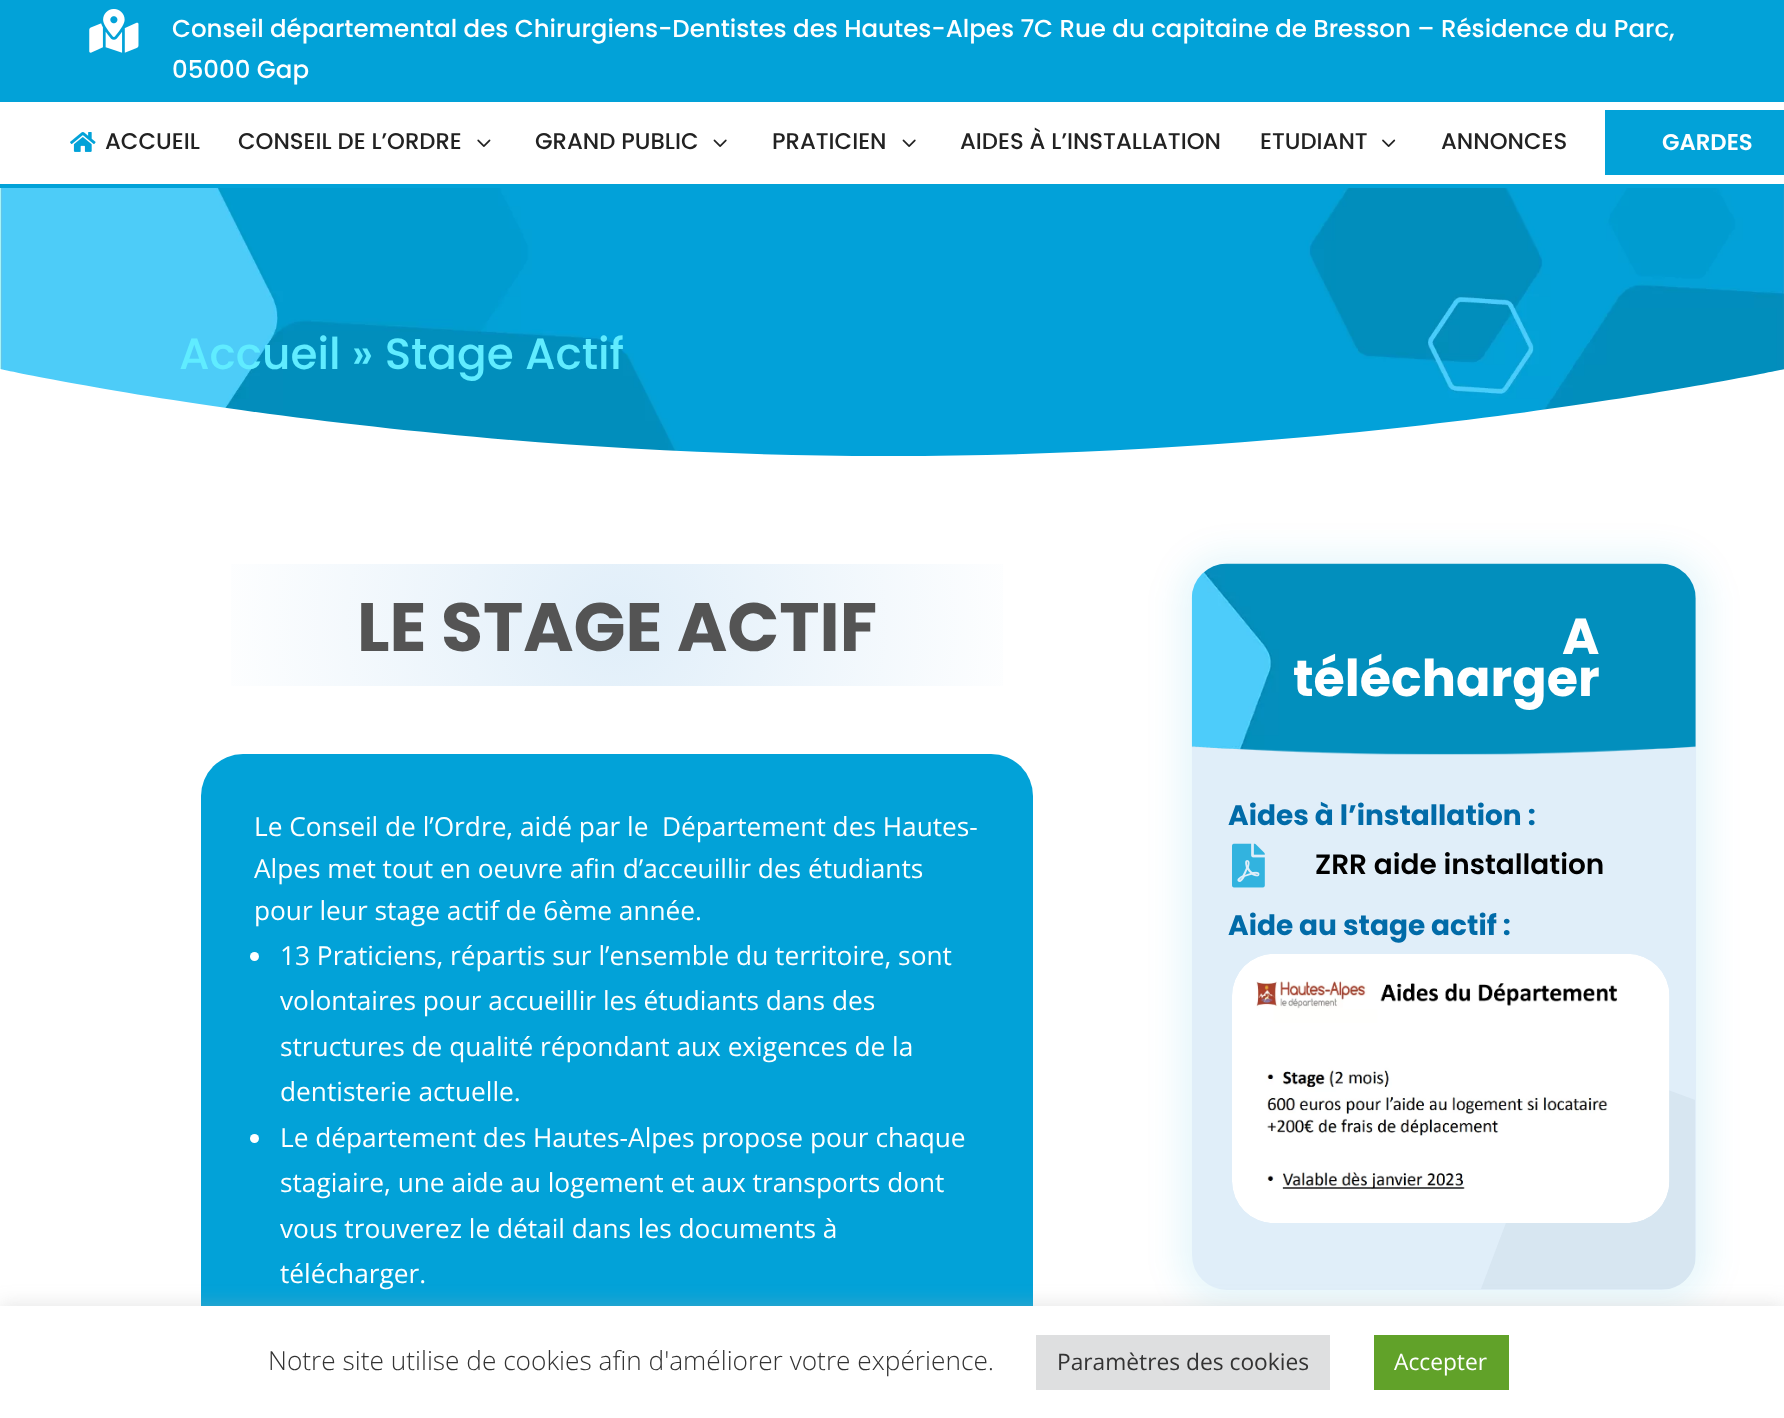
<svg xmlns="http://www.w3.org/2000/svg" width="1784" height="1418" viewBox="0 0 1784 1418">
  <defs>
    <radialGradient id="g1" gradientUnits="userSpaceOnUse" cx="617" cy="625" r="420"><stop offset="0" stop-color="#e0eef9"/><stop offset="1" stop-color="#ffffff"/></radialGradient>
    <filter id="blur1" x="-50%" y="-200%" width="200%" height="500%"><feGaussianBlur stdDeviation="16"/></filter>
    <filter id="blur2" x="-50%" y="-200%" width="200%" height="500%"><feGaussianBlur stdDeviation="9"/></filter>
  </defs>
  <rect width="100%" height="100%" fill="#ffffff"/>
  <rect x="0" y="0" width="1784" height="102" fill="#02a2d8"/>
  <image x="89" y="9" width="50" height="44" href="img1.png"/>
  <text x="172" y="37" font-family="Poppins" font-size="24.5" font-weight="500" fill="#ffffff">Conseil départemental des Chirurgiens-Dentistes des Hautes-Alpes 7C Rue du capitaine de Bresson – Résidence du Parc,</text>
  <text x="172" y="78" font-family="Poppins" font-size="24.5" font-weight="500" fill="#ffffff">05000 Gap</text>
  <rect x="0" y="184" width="1784" height="4" fill="#02a2d8"/>
  <image x="70" y="132" width="26" height="20" href="img2.png"/>
  <text x="105" y="149" font-family="Poppins" font-size="22.75" font-weight="500" fill="#222222">ACCUEIL</text>
  <text x="238" y="149" font-family="Poppins" font-size="22.75" font-weight="500" fill="#222222">CONSEIL DE L’ORDRE</text>
  <image x="477" y="139" width="14" height="8" href="img3.png"/>
  <text x="535" y="149" font-family="Poppins" font-size="22.75" font-weight="500" fill="#222222">GRAND PUBLIC</text>
  <image x="713" y="139" width="14" height="8" href="img4.png"/>
  <text x="772" y="149" font-family="Poppins" font-size="22.75" font-weight="500" fill="#222222">PRATICIEN</text>
  <image x="902" y="139" width="14" height="8" href="img4.png"/>
  <text x="960" y="149" font-family="Poppins" font-size="22.75" font-weight="500" fill="#222222">AIDES À L’INSTALLATION</text>
  <text x="1260" y="149" font-family="Poppins" font-size="22.75" font-weight="500" fill="#222222">ETUDIANT</text>
  <image x="1382" y="139" width="14" height="8" href="img5.png"/>
  <text x="1441" y="149" font-family="Poppins" font-size="22.75" font-weight="500" fill="#222222">ANNONCES</text>
  <rect x="1605" y="110" width="179" height="65" fill="#02a2d8"/>
  <text x="1662" y="150" font-family="Poppins" font-size="22.75" font-weight="600" fill="#ffffff">GARDES</text>
  <image x="0" y="188" width="1784" height="268" href="img6.png"/>
  <path d="M0 457V369C0 369 400 457 892 456C1385 456 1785 369 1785 369V457Z" fill="#ffffff"/>
  <text x="179" y="369" font-family="Poppins" font-size="43.75" font-weight="500" fill="#60ecff">Accueil » Stage Actif</text>
  <rect x="231" y="564" width="772" height="122" fill="url(#g1)"/>
  <text x="357" y="651" font-family="Poppins" font-size="68.25" font-weight="bold" fill="#545454">LE STAGE ACTIF</text>
  <rect x="201" y="754" width="832" height="594" rx="42" fill="#02a2d8"/>
  <text x="254" y="836" font-family="Open Sans" font-size="26.25" fill="#ffffff" xml:space="preserve">Le Conseil de l’Ordre, aidé par le  Département des Hautes-</text>
  <text x="254" y="878" font-family="Open Sans" font-size="26.25" fill="#ffffff">Alpes met tout en oeuvre afin d’acceuillir des étudiants</text>
  <text x="254" y="920" font-family="Open Sans" font-size="26.25" fill="#ffffff">pour leur stage actif de 6ème année.</text>
  <circle cx="254.5" cy="956.5" r="4.5" fill="#ffffff"/>
  <text x="280" y="965" font-family="Open Sans" font-size="26.25" fill="#ffffff">13 Praticiens, répartis sur l’ensemble du territoire, sont</text>
  <text x="280" y="1010" font-family="Open Sans" font-size="26.25" fill="#ffffff">volontaires pour accueillir les étudiants dans des</text>
  <text x="280" y="1056" font-family="Open Sans" font-size="26.25" fill="#ffffff">structures de qualité répondant aux exigences de la</text>
  <text x="280" y="1101" font-family="Open Sans" font-size="26.25" fill="#ffffff">dentisterie actuelle.</text>
  <circle cx="254.5" cy="1138.5" r="4.5" fill="#ffffff"/>
  <text x="280" y="1147" font-family="Open Sans" font-size="26.25" fill="#ffffff">Le département des Hautes-Alpes propose pour chaque</text>
  <text x="280" y="1192" font-family="Open Sans" font-size="26.25" fill="#ffffff">stagiaire, une aide au logement et aux transports dont</text>
  <text x="280" y="1238" font-family="Open Sans" font-size="26.25" fill="#ffffff">vous trouverez le détail dans les documents à</text>
  <text x="280" y="1283" font-family="Open Sans" font-size="26.25" fill="#ffffff">télécharger.</text>
  <rect x="1178" y="553" width="532" height="754" rx="49" fill="#02a2d8" fill-opacity="0.09" filter="url(#blur1)"/>
  <rect x="1192" y="564" width="504" height="726" rx="35" fill="#e0eef9"/>
  <image x="1191" y="563" width="505" height="192" href="img7.png"/>
  <text x="1562" y="654" font-family="Poppins" font-size="50.75" font-weight="bold" fill="#ffffff">A</text>
  <text x="1293" y="696" font-family="Poppins" font-size="50.75" font-weight="bold" fill="#ffffff">télécharger</text>
  <text x="1228" y="825" font-family="Poppins" font-size="28" font-weight="bold" fill="#016ba8">Aides à l’installation :</text>
  <image x="1232" y="843" width="33" height="45" href="img8.png"/>
  <text x="1315" y="874" font-family="Poppins" font-size="28" font-weight="600" fill="#000000">ZRR aide installation</text>
  <text x="1228" y="935" font-family="Poppins" font-size="28" font-weight="bold" fill="#016ba8">Aide au stage actif :</text>
  <path d="M1598 1064L1695 1100V1263C1692 1276 1682 1286 1669 1289H1481L1560 1080C1566 1065 1583 1058 1598 1064Z" fill="#ceddea" fill-opacity="0.5"/>
  <image x="1232" y="954" width="438" height="269" href="img9.png"/>
  <rect x="0" y="1304" width="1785" height="114" fill="#acabab" fill-opacity="0.3" filter="url(#blur2)"/>
  <rect x="0" y="1306" width="1784" height="112" fill="#ffffff"/>
  <text x="268" y="1370" font-family="Open Sans" font-size="26.25" font-weight="300" fill="#333333">Notre site utilise de cookies afin d'améliorer votre expérience.</text>
  <rect x="1036" y="1335" width="294" height="55" fill="#dedfe0"/>
  <text x="1057" y="1370" font-family="Open Sans" font-size="22.75" fill="#333333">Paramètres des cookies</text>
  <rect x="1374" y="1335" width="135" height="55" fill="#61a229"/>
  <text x="1394" y="1370" font-family="Open Sans" font-size="22.75" fill="#ffffff">Accepter</text>
</svg>
